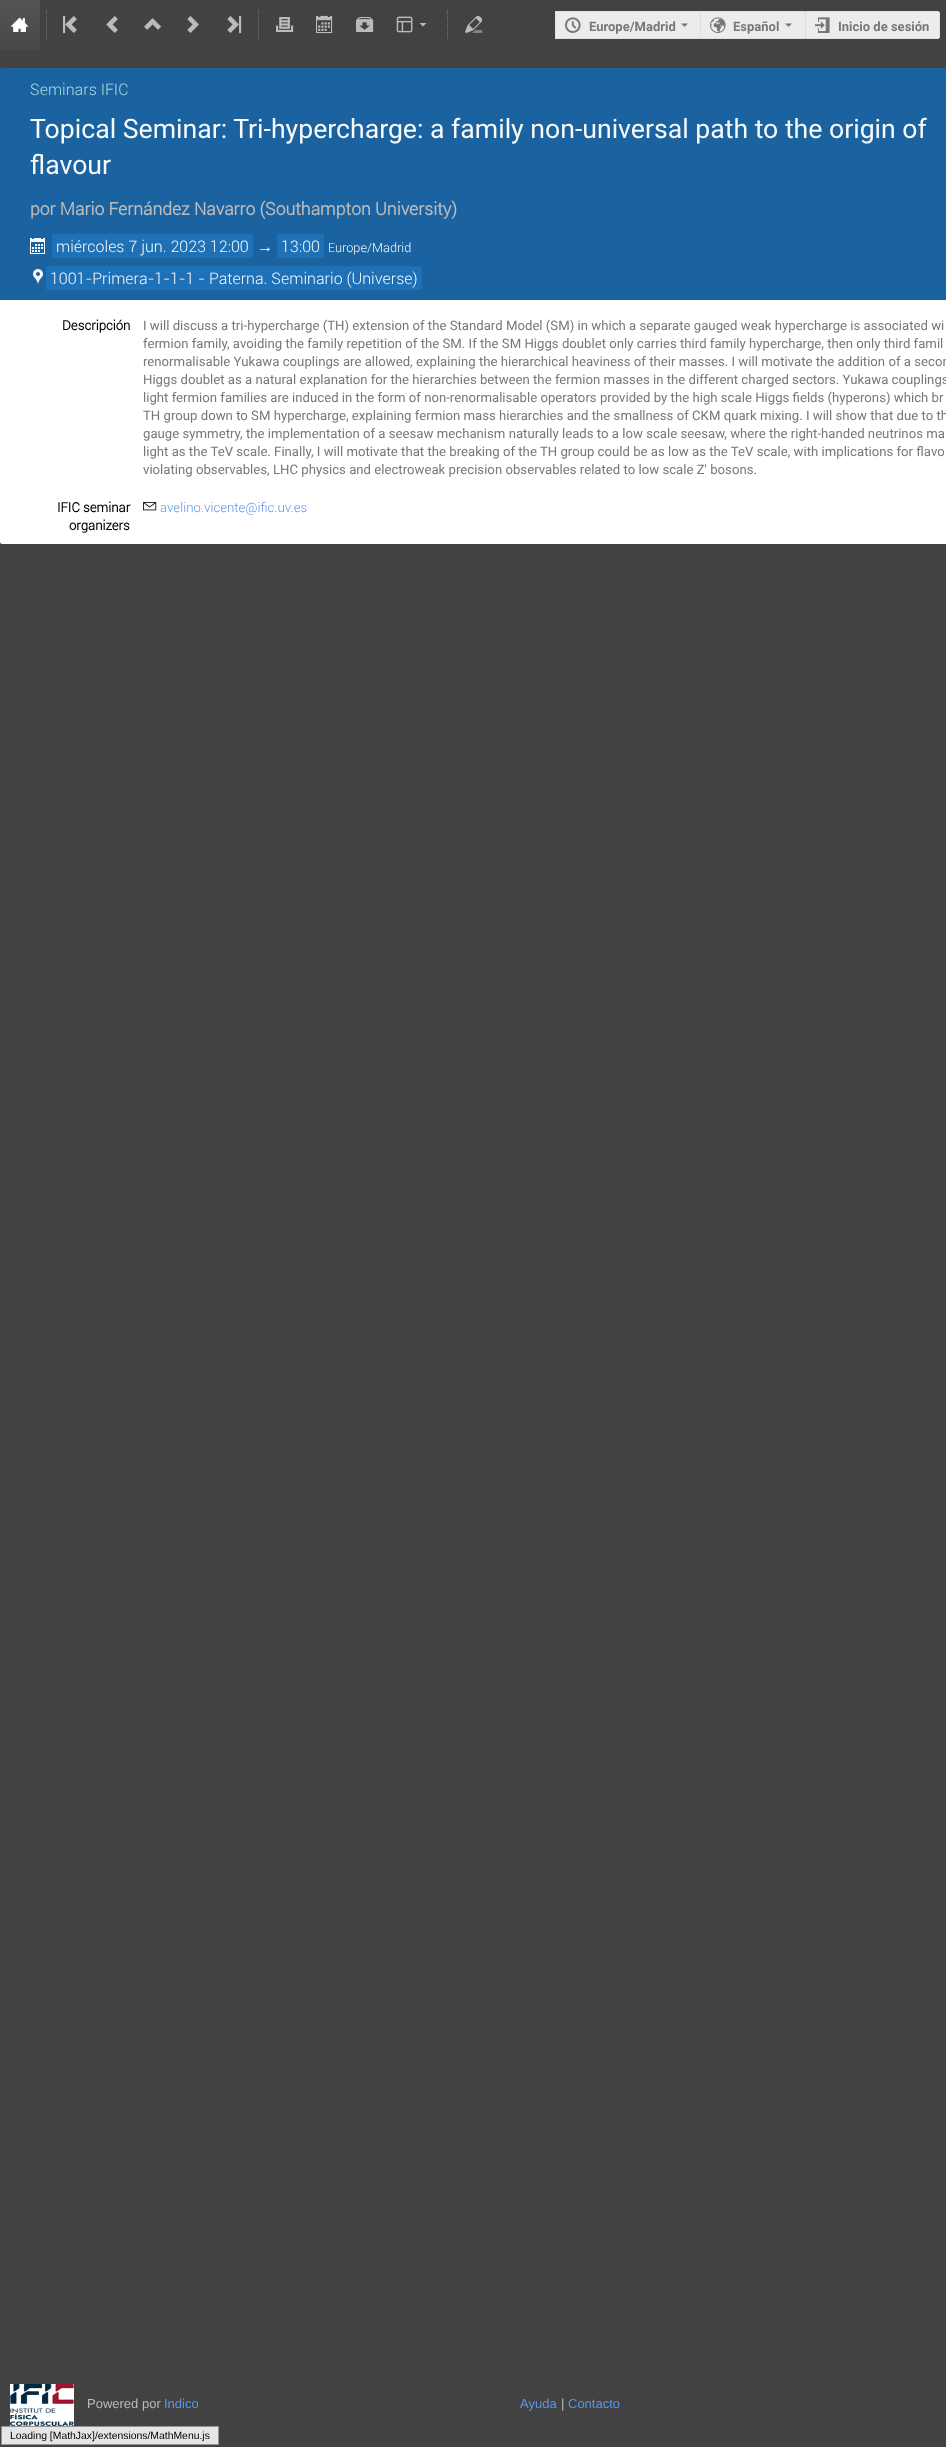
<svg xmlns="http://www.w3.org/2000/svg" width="946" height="2447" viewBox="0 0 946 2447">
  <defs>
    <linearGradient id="g1" gradientUnits="userSpaceOnUse" x1="20" y1="0" x2="20" y2="50"><stop offset="0" stop-color="#555555"/><stop offset="1" stop-color="#484848"/></linearGradient>
  </defs>
  <rect width="100%" height="100%" fill="#424242"/>
  <rect x="0" y="0" width="40" height="50" fill="url(#g1)"/>
  <image x="11" y="17" width="18" height="15" href="img1.png"/>
  <path d="M46.5 10V40" fill="none" stroke="#777777" stroke-dasharray="1 1"/>
  <image x="63" y="15" width="14" height="19" href="img2.png"/>
  <image x="106" y="16" width="12" height="17" href="img3.png"/>
  <image x="144" y="18" width="17" height="12" href="img4.png"/>
  <image x="187" y="16" width="12" height="17" href="img5.png"/>
  <image x="227" y="15" width="15" height="19" href="img6.png"/>
  <path d="M258.5 10V40" fill="none" stroke="#777777" stroke-dasharray="1 1"/>
  <image x="276" y="17" width="18" height="15" href="img7.png"/>
  <image x="316" y="15" width="17" height="19" href="img8.png"/>
  <image x="356" y="17" width="18" height="15" href="img9.png"/>
  <image x="396" y="16" width="17" height="17" href="img10.png"/>
  <path d="M419.5 23L423 26.5L426.5 23Z" fill="#bbbbbb"/>
  <path d="M447.5 10V40" fill="none" stroke="#777777" stroke-dasharray="1 1"/>
  <image x="465" y="16" width="18" height="17" href="img11.png"/>
  <rect x="556" y="12" width="144" height="26" fill="#ececec"/>
  <rect x="555" y="11" width="250" height="1" fill="#dfdfdf"/>
  <rect x="555" y="38" width="250" height="1" fill="#dfdfdf"/>
  <rect x="555" y="11" width="1" height="28" fill="#dfdfdf"/>
  <image x="565" y="17" width="16" height="16" href="img12.png"/>
  <text x="589" y="31" font-family="'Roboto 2'" font-size="13" font-weight="bold" fill="#777777">Europe/Madrid</text>
  <path d="M681 23.5L684.5 27L688 23.5Z" fill="#777777"/>
  <rect x="701" y="12" width="104" height="26" fill="#ececec"/>
  <rect x="700" y="11" width="1" height="28" fill="#dfdfdf"/>
  <image x="710" y="17" width="16" height="16" href="img13.png"/>
  <text x="733" y="31" font-family="'Roboto 2'" font-size="13" font-weight="bold" fill="#777777">Español</text>
  <path d="M785 23.5L788.5 27L792 23.5Z" fill="#777777"/>
  <path d="M805.5 11.5H938C939 11.5 939.5 12 939.5 13V37C939.5 38 939 38.5 938 38.5H805.5Z" fill="#ececec" stroke="#dfdfdf"/>
  <image x="815" y="17" width="15" height="16" href="img14.png"/>
  <text x="838" y="31" font-family="'Roboto 2'" font-size="13" font-weight="bold" fill="#777777">Inicio de sesión</text>
  <path d="M2 68H946C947 68 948 69 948 70V300H0V70C0 69 1 68 2 68Z" fill="#1a63a0"/>
  <text x="30" y="95" font-family="Roboto" font-size="16" font-weight="300" fill="#a8dede">Seminars IFIC</text>
  <text x="30" y="138" font-family="Roboto" font-size="26.65" fill="#f9f9f9">Topical Seminar: Tri-hypercharge: a family non-universal path to the origin of</text>
  <text x="30" y="174" font-family="Roboto" font-size="26.65" fill="#f9f9f9">flavour</text>
  <text x="30" y="215" font-family="Roboto" font-size="17.6" font-weight="bold" fill="#bbbbbb">por Mario Fernández Navarro (Southampton University)</text>
  <image x="30" y="238" width="15" height="16" href="img15.png"/>
  <rect x="52" y="234" width="201" height="24" rx="2" fill="#1e71b6"/>
  <text x="56" y="252" font-family="Roboto" font-size="16" font-weight="300" fill="#f9f9f9">miércoles 7 jun. 2023 12:00</text>
  <text x="257" y="252" font-family="'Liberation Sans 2'" font-size="16" fill="#f9f9f9">→</text>
  <rect x="277" y="234" width="47" height="24" rx="2" fill="#1e71b6"/>
  <text x="281" y="252" font-family="Roboto" font-size="16" font-weight="300" fill="#f9f9f9">13:00</text>
  <text x="328" y="252" font-family="Roboto" font-size="12.75" font-weight="300" fill="#f9f9f9">Europe/Madrid</text>
  <image x="33" y="269" width="10" height="16" href="img16.png"/>
  <rect x="46" y="266" width="376" height="24" rx="2" fill="#1e71b6"/>
  <text x="50" y="284" font-family="Roboto" font-size="16" font-weight="300" fill="#f9f9f9">1001-Primera-1-1-1 - Paterna. Seminario (Universe)</text>
  <path d="M0 300H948V542C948 543 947 544 946 544H2C1 544 0 543 0 542Z" fill="#ffffff"/>
  <text x="62" y="330" font-family="Roboto" font-size="13.2" font-weight="bold" fill="#000000">Descripción</text>
  <text x="143" y="330" font-family="Roboto" font-size="13.2" fill="#777777">I will discuss a tri-hypercharge (TH) extension of the Standard Model (SM) in which a separate gauged weak hypercharge is associated wi</text>
  <text x="143" y="348" font-family="Roboto" font-size="13.2" fill="#777777">fermion family, avoiding the family repetition of the SM. If the SM Higgs doublet only carries third family hypercharge, then only third famil</text>
  <text x="143" y="366" font-family="Roboto" font-size="13.2" fill="#777777">renormalisable Yukawa couplings are allowed, explaining the hierarchical heaviness of their masses. I will motivate the addition of a secon</text>
  <text x="143" y="384" font-family="Roboto" font-size="13.2" fill="#777777">Higgs doublet as a natural explanation for the hierarchies between the fermion masses in the different charged sectors. Yukawa couplings</text>
  <text x="143" y="402" font-family="Roboto" font-size="13.2" fill="#777777">light fermion families are induced in the form of non-renormalisable operators provided by the high scale Higgs fields (hyperons) which br</text>
  <text x="143" y="420" font-family="Roboto" font-size="13.2" fill="#777777">TH group down to SM hypercharge, explaining fermion mass hierarchies and the smallness of CKM quark mixing. I will show that due to th</text>
  <text x="143" y="438" font-family="Roboto" font-size="13.2" fill="#777777">gauge symmetry, the implementation of a seesaw mechanism naturally leads to a low scale seesaw, where the right-handed neutrinos ma</text>
  <text x="143" y="456" font-family="Roboto" font-size="13.2" fill="#777777">light as the TeV scale. Finally, I will motivate that the breaking of the TH group could be as low as the TeV scale, with implications for flavo</text>
  <text x="143" y="474" font-family="Roboto" font-size="13.2" fill="#777777">violating observables, LHC physics and electroweak precision observables related to low scale Z' bosons.</text>
  <text x="57" y="512" font-family="Roboto" font-size="13.2" font-weight="bold" fill="#000000">IFIC seminar</text>
  <text x="69" y="530" font-family="Roboto" font-size="13.2" font-weight="bold" fill="#000000">organizers</text>
  <image x="143" y="502" width="14" height="9" href="img17.png"/>
  <text x="160" y="512" font-family="Roboto" font-size="13.2" font-weight="300" fill="#5d95ea">avelino.vicente@ific.uv.es</text>
  <image x="10" y="2384" width="64" height="42" href="img18.png"/>
  <text x="87" y="2408" font-family="Liberation Sans" font-size="13" fill="#bbbbbb">Powered por</text>
  <text x="164" y="2408" font-family="Liberation Sans" font-size="13" fill="#5d95ea">Indico</text>
  <text x="520" y="2408" font-family="Liberation Sans" font-size="13" fill="#5d95ea">Ayuda</text>
  <text x="561" y="2408" font-family="Liberation Sans" font-size="13" fill="#bbbbbb">|</text>
  <text x="568" y="2408" font-family="Liberation Sans" font-size="13" fill="#5d95ea">Contacto</text>
  <rect x="1.5" y="2426.5" width="217" height="18" fill="#e6e6e6" stroke="#959595"/>
  <text x="10" y="2439" font-family="Liberation Sans" font-size="10.4" fill="#000000">Loading [MathJax]/extensions/MathMenu.js</text>
</svg>
